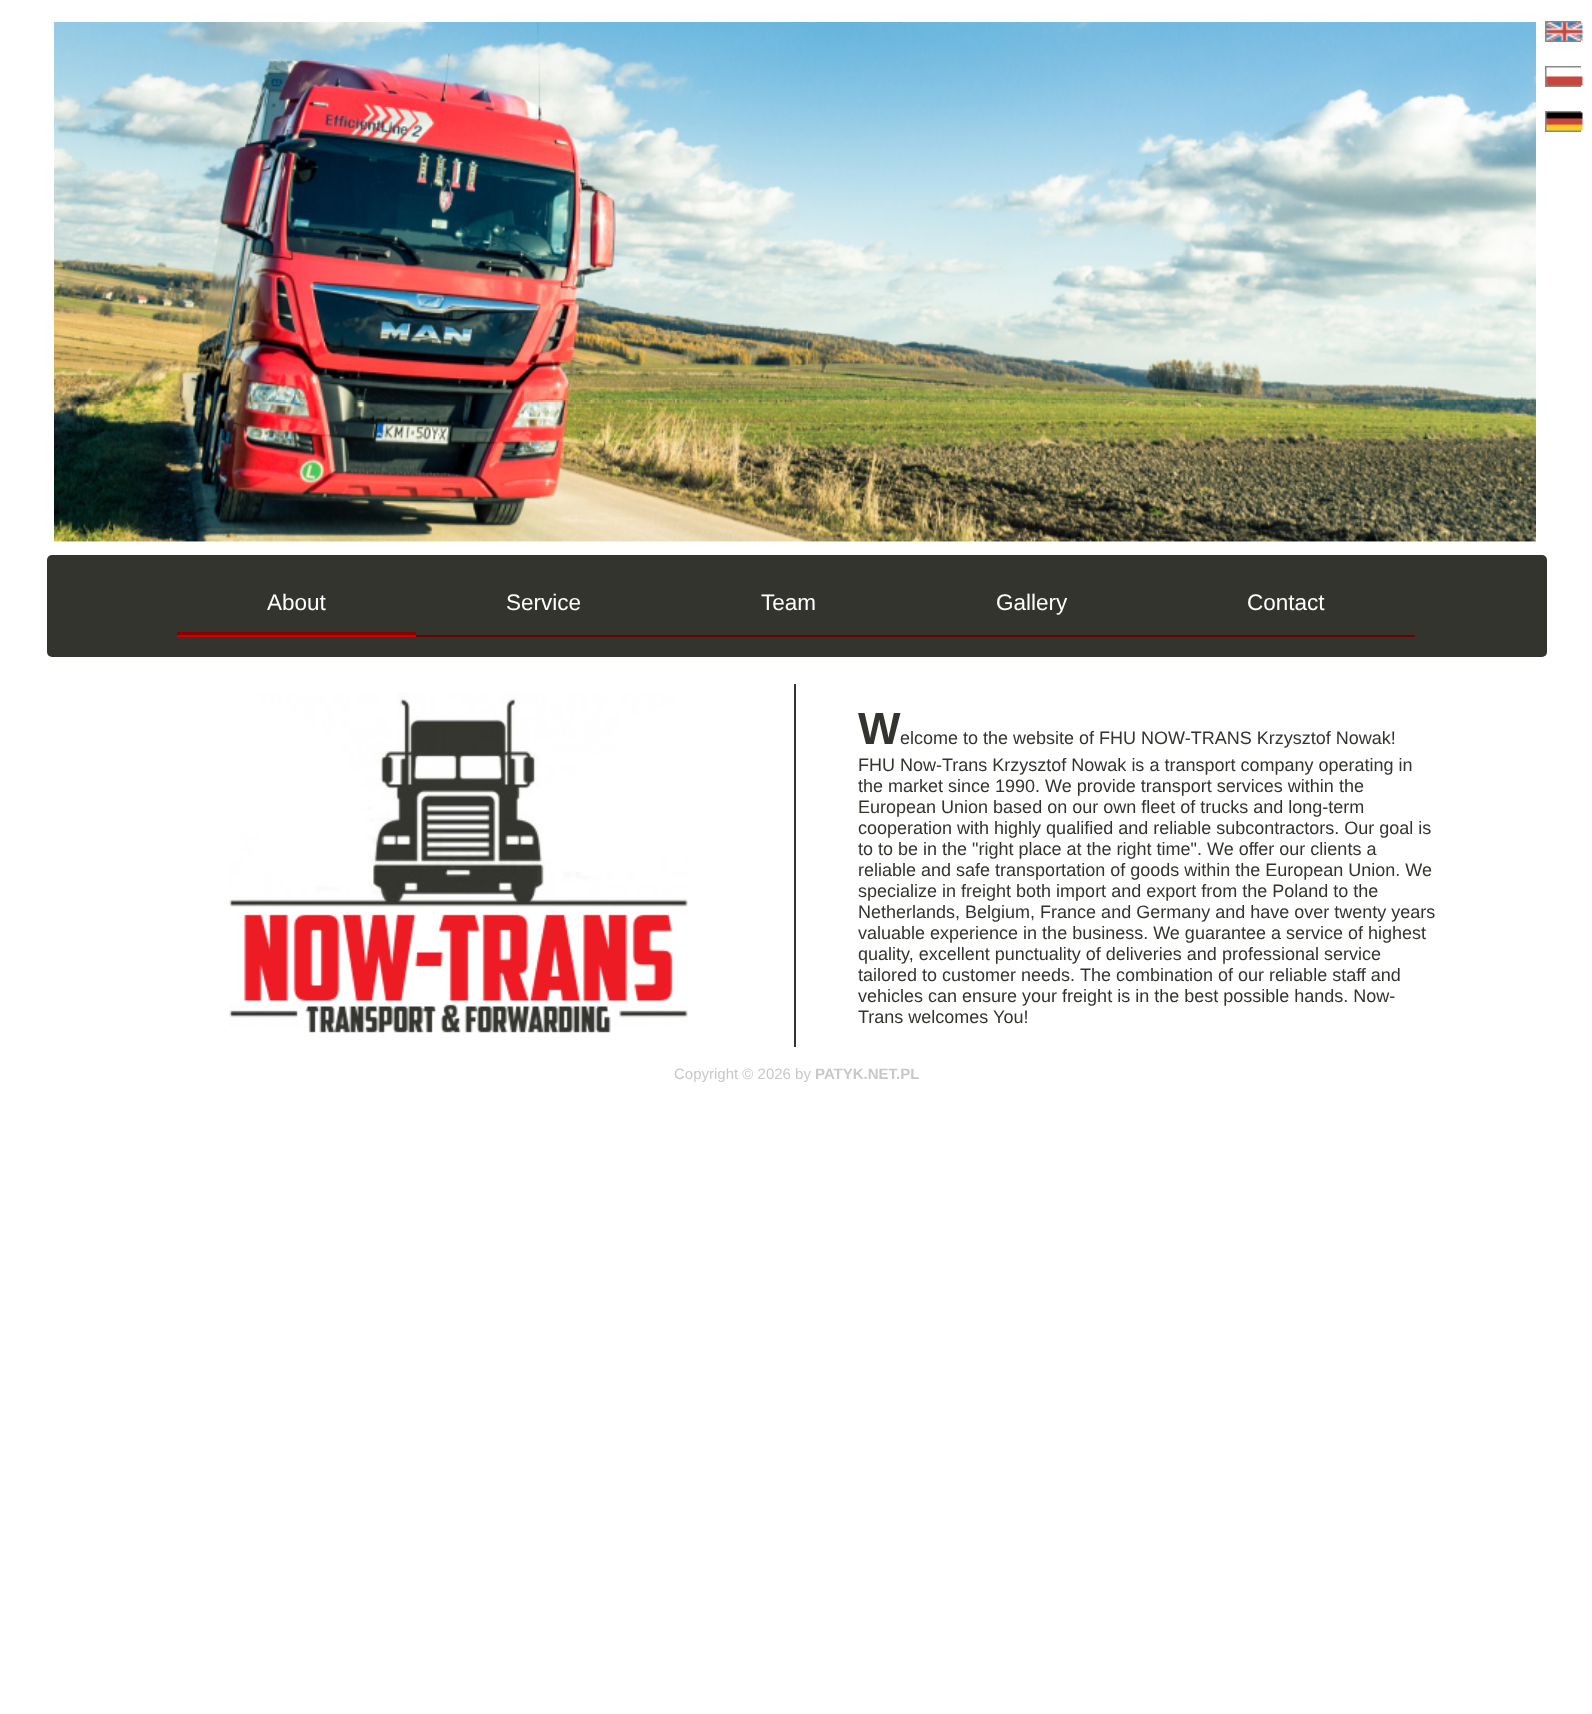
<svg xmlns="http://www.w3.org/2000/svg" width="1592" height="1714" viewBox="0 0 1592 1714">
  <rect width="100%" height="100%" fill="#ffffff"/>
  <image x="54" y="22" width="1482" height="520" href="img1.png"/>
  <rect x="1546" y="22" width="34" height="19" fill="none" stroke="#888888" stroke-width="2"/>
  <image x="1546" y="22" width="37" height="19" href="img2.png"/>
  <rect x="1546" y="67" width="34" height="19" fill="none" stroke="#888888" stroke-width="2"/>
  <image x="1546" y="67" width="37" height="19" href="img3.png"/>
  <rect x="1546" y="112" width="34" height="19" fill="none" stroke="#888888" stroke-width="2"/>
  <image x="1546" y="112" width="37" height="19" href="img4.png"/>
  <rect x="47" y="555" width="1500" height="102" rx="5" fill="#33342e"/>
  <rect x="416" y="635" width="999" height="2" fill="#6c0000"/>
  <text x="267" y="610" font-family="Liberation Sans" font-size="22.5" fill="#ffffff">About</text>
  <text x="506" y="610" font-family="Liberation Sans" font-size="22.5" fill="#ffffff">Service</text>
  <text x="761" y="610" font-family="Liberation Sans" font-size="22.5" fill="#ffffff">Team</text>
  <text x="996" y="610" font-family="Liberation Sans" font-size="22.5" fill="#ffffff">Gallery</text>
  <text x="1247" y="610" font-family="Liberation Sans" font-size="22.5" fill="#ffffff">Contact</text>
  <rect x="177" y="632" width="239" height="3" fill="#880000"/>
  <rect x="177" y="635" width="239" height="2" fill="#cc0000"/>
  <rect x="794" y="684" width="2" height="363" fill="#33342e"/>
  <image x="229" y="692" width="459" height="341" href="img5.png"/>
  <text x="858" y="744" font-family="Liberation Sans" font-size="45" font-weight="bold" fill="#33342e">W</text>
  <text x="900" y="744" font-family="Liberation Sans" font-size="18" fill="#33342e">elcome to the website of FHU NOW-TRANS Krzysztof Nowak!</text>
  <text x="858" y="771" font-family="Liberation Sans" font-size="18" fill="#33342e">FHU Now-Trans Krzysztof Nowak is a transport company operating in</text>
  <text x="858" y="792" font-family="Liberation Sans" font-size="18" fill="#33342e">the market since 1990. We provide transport services within the</text>
  <text x="858" y="813" font-family="Liberation Sans" font-size="18" fill="#33342e">European Union based on our own fleet of trucks and long-term</text>
  <text x="858" y="834" font-family="Liberation Sans" font-size="18" fill="#33342e">cooperation with highly qualified and reliable subcontractors. Our goal is</text>
  <text x="858" y="855" font-family="Liberation Sans" font-size="18" fill="#33342e">to to be in the "right place at the right time". We offer our clients a</text>
  <text x="858" y="876" font-family="Liberation Sans" font-size="18" fill="#33342e">reliable and safe transportation of goods within the European Union. We</text>
  <text x="858" y="897" font-family="Liberation Sans" font-size="18" fill="#33342e">specialize in freight both import and export from the Poland to the</text>
  <text x="858" y="918" font-family="Liberation Sans" font-size="18" fill="#33342e">Netherlands, Belgium, France and Germany and have over twenty years</text>
  <text x="858" y="939" font-family="Liberation Sans" font-size="18" fill="#33342e">valuable experience in the business. We guarantee a service of highest</text>
  <text x="858" y="960" font-family="Liberation Sans" font-size="18" fill="#33342e">quality, excellent punctuality of deliveries and professional service</text>
  <text x="858" y="981" font-family="Liberation Sans" font-size="18" fill="#33342e">tailored to customer needs.</text>
  <text x="1080" y="981" font-family="Liberation Sans" font-size="18" fill="#33342e">The combination of our reliable staff and</text>
  <text x="858" y="1002" font-family="Liberation Sans" font-size="18" fill="#33342e">vehicles can ensure your freight is in the best possible hands. Now-</text>
  <text x="858" y="1023" font-family="Liberation Sans" font-size="18" fill="#33342e">Trans welcomes You!</text>
  <text x="674" y="1079" font-family="Liberation Sans" font-size="15" fill="#c8c8c8">Copyright © 2026 by</text>
  <text x="815" y="1079" font-family="Liberation Sans" font-size="15" font-weight="bold" fill="#c8c8c8">PATYK.NET.PL</text>
</svg>
